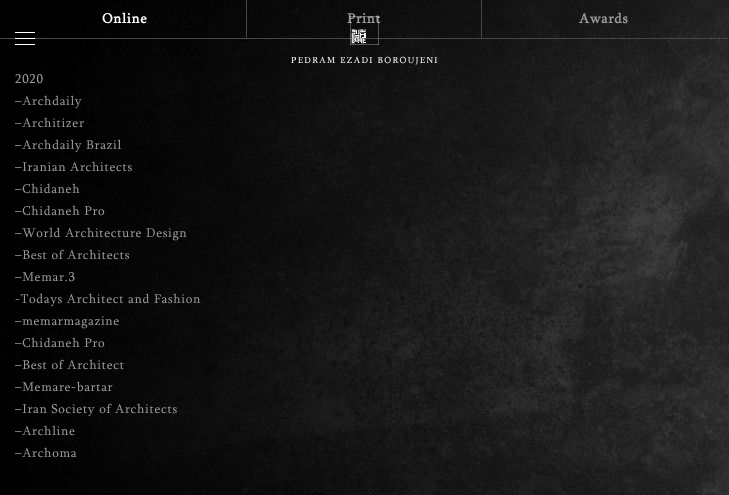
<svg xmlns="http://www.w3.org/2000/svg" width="729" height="495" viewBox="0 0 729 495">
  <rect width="100%" height="100%" fill="#ffffff"/>
  <image x="0" y="0" width="729" height="495" href="img1.png"/>
  <rect x="0" y="38" width="728" height="1" fill="#464646"/>
  <text x="102" y="23" font-family="'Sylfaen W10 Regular'" font-size="14" font-weight="bold" letter-spacing="0.75" fill="#ffffff">Online</text>
  <rect x="481" y="0" width="1" height="38" fill="#464646"/>
  <rect x="246" y="0" width="1" height="38" fill="#464646"/>
  <text x="347" y="23" font-family="'Sylfaen W10 Regular'" font-size="14" font-weight="bold" letter-spacing="0.75" fill="#999999">Print</text>
  <text x="579" y="23" font-family="'Sylfaen W10 Regular'" font-size="14" font-weight="bold" letter-spacing="0.75" fill="#999999">Awards</text>
  <text x="15" y="83" font-family="'Sylfaen W10 Regular'" font-size="13" letter-spacing="0.65" fill="#999999">2020</text>
  <text x="15" y="105" font-family="'Sylfaen W10 Regular'" font-size="13" letter-spacing="0.65" fill="#999999">–Archdaily</text>
  <text x="15" y="127" font-family="'Sylfaen W10 Regular'" font-size="13" letter-spacing="0.65" fill="#999999">–Architizer</text>
  <text x="15" y="149" font-family="'Sylfaen W10 Regular'" font-size="13" letter-spacing="0.65" fill="#999999">–Archdaily Brazil</text>
  <text x="15" y="171" font-family="'Sylfaen W10 Regular'" font-size="13" letter-spacing="0.65" fill="#999999">–Iranian Architects</text>
  <text x="15" y="193" font-family="'Sylfaen W10 Regular'" font-size="13" letter-spacing="0.65" fill="#999999">–Chidaneh</text>
  <text x="15" y="215" font-family="'Sylfaen W10 Regular'" font-size="13" letter-spacing="0.65" fill="#999999">–Chidaneh Pro</text>
  <text x="15" y="237" font-family="'Sylfaen W10 Regular'" font-size="13" letter-spacing="0.65" fill="#999999">–World Architecture Design</text>
  <text x="15" y="259" font-family="'Sylfaen W10 Regular'" font-size="13" letter-spacing="0.65" fill="#999999">–Best of Architects</text>
  <text x="15" y="281" font-family="'Sylfaen W10 Regular'" font-size="13" letter-spacing="0.65" fill="#999999">–Memar.3</text>
  <text x="15" y="303" font-family="'Sylfaen W10 Regular'" font-size="13" letter-spacing="0.65" fill="#999999">-Todays Architect and Fashion</text>
  <text x="15" y="325" font-family="'Sylfaen W10 Regular'" font-size="13" letter-spacing="0.65" fill="#999999">–memarmagazine</text>
  <text x="15" y="347" font-family="'Sylfaen W10 Regular'" font-size="13" letter-spacing="0.65" fill="#999999">–Chidaneh Pro</text>
  <text x="15" y="369" font-family="'Sylfaen W10 Regular'" font-size="13" letter-spacing="0.65" fill="#999999">–Best of Architect</text>
  <text x="15" y="391" font-family="'Sylfaen W10 Regular'" font-size="13" letter-spacing="0.65" fill="#999999">–Memare-bartar</text>
  <text x="15" y="413" font-family="'Sylfaen W10 Regular'" font-size="13" letter-spacing="0.65" fill="#999999">–Iran Society of Architects</text>
  <text x="15" y="435" font-family="'Sylfaen W10 Regular'" font-size="13" letter-spacing="0.65" fill="#999999">–Archline</text>
  <text x="15" y="457" font-family="'Sylfaen W10 Regular'" font-size="13" letter-spacing="0.65" fill="#999999">–Archoma</text>
  <rect x="15" y="32" width="20" height="1" fill="#ffffff"/>
  <rect x="15" y="38" width="20" height="1" fill="#ffffff"/>
  <rect x="15" y="44" width="20" height="1" fill="#ffffff"/>
  <image x="350" y="16" width="29" height="29" href="img2.png"/>
  <text x="291" y="63" font-family="'Sylfaen W10 Regular'" font-size="9" letter-spacing="1.35" fill="#ffffff">PEDRAM EZADI BOROUJENI</text>
</svg>
